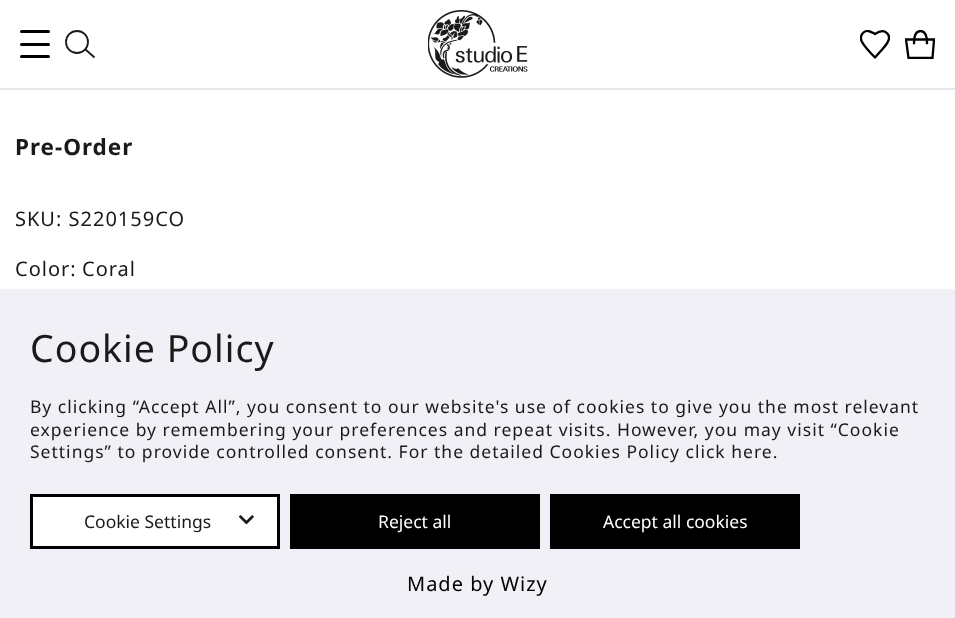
<svg xmlns="http://www.w3.org/2000/svg" width="955" height="618" viewBox="0 0 955 618">
  <defs>
    <clipPath id="clip1"><rect x="860" y="30" width="30" height="29"/></clipPath>
    <clipPath id="clip2"><rect x="905" y="30" width="30" height="29"/></clipPath>
  </defs>
  <rect width="100%" height="100%" fill="#ffffff"/>
  <rect x="0" y="88" width="955" height="2" fill="#e5e7eb"/>
  <rect x="20" y="43" width="30" height="3" rx="1.5" fill="#000000"/>
  <rect x="20" y="30" width="30" height="3" rx="1.5" fill="#000000"/>
  <rect x="20" y="55" width="30" height="3" rx="1.5" fill="#000000"/>
  <circle cx="77" cy="42" r="11" fill="none" stroke="#1a1a18" stroke-width="1.8"/>
  <path d="M85 49L94.5 57.5" fill="none" stroke="#1a1a18" stroke-width="1.8"/>
  <image x="428" y="10" width="100" height="68" href="img1.png"/>
  <g clip-path="url(#clip1)">
    <path d="M875 57.5C870.5 53 864.5 47 861.5 41C859.5 36 863 30.5 868.5 31C871 31.5 873 33 875 34C878 32 882 30 885.5 32C893 36.5 887 44 883 48.5L875 57.5" fill="none" stroke="#000000" stroke-width="2.3" stroke-linecap="round" stroke-linejoin="round"/>
  </g>
  <g clip-path="url(#clip2)">
    <path d="M914 43C914 38 914.5 31 920.5 31C926.5 31 927 37.5 927 43" fill="none" stroke="#000000" stroke-width="2.3" stroke-linecap="square" stroke-linejoin="round"/>
    <path d="M906 39.5L908.5 58H932.5L934 39.5Z" fill="none" stroke="#000000" stroke-width="2.3"/>
  </g>
  <text x="15" y="155" font-family="Noto Sans" font-size="22.5" font-weight="bold" letter-spacing="1" fill="#1a1a18">Pre-Order</text>
  <text x="15" y="226" font-family="Noto Sans" font-size="20" letter-spacing="1" fill="#1a1a18">SKU: S220159CO</text>
  <text x="15" y="276" font-family="Noto Sans" font-size="20" letter-spacing="1" fill="#1a1a18">Color:</text>
  <text x="82" y="276" font-family="Noto Sans" font-size="20" letter-spacing="1" fill="#1a1a18">Coral</text>
  <rect x="0" y="289" width="955" height="329" fill="#f0f0f6"/>
  <text x="30" y="362" font-family="Noto Sans" font-size="37.5" letter-spacing="1" fill="#1a1a18">Cookie Policy</text>
  <text x="30" y="413" font-family="Noto Sans" font-size="17.5" letter-spacing="1" fill="#1a1a18">By clicking “Accept All”, you consent to our website's use of cookies to give you the most relevant</text>
  <text x="30" y="436" font-family="Noto Sans" font-size="17.5" letter-spacing="1" fill="#1a1a18">experience by remembering your preferences and repeat visits. However, you may visit “Cookie</text>
  <text x="30" y="458" font-family="Noto Sans" font-size="17.5" letter-spacing="1" fill="#1a1a18">Settings” to provide controlled consent. For the detailed Cookies Policy click here.</text>
  <rect x="31.5" y="495.5" width="247" height="52" fill="#ffffff" stroke="#000000" stroke-width="3"/>
  <text x="84" y="528" font-family="Noto Sans" font-size="17.5" fill="#1a1a18">Cookie Settings</text>
  <image x="239" y="515" width="15" height="10" href="img2.png"/>
  <rect x="290" y="494" width="250" height="55" fill="#000000"/>
  <text x="378" y="528" font-family="Noto Sans" font-size="17.5" fill="#ffffff">Reject all</text>
  <rect x="550" y="494" width="250" height="55" fill="#000000"/>
  <text x="603" y="528" font-family="Noto Sans" font-size="17.5" fill="#ffffff">Accept all cookies</text>
  <text x="407" y="591" font-family="Noto Sans" font-size="20" letter-spacing="1" fill="#000000">Made by Wizy</text>
</svg>
